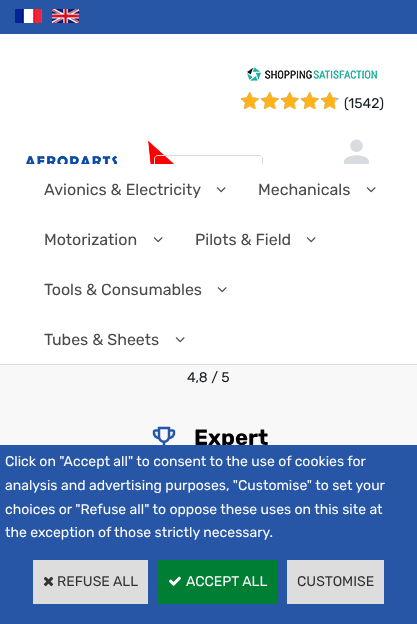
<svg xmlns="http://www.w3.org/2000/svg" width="417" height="624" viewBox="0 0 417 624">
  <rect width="100%" height="100%" fill="#f8f8f8"/>
  <rect x="0" y="34" width="417" height="130" fill="#ffffff"/>
  <rect x="0" y="0" width="417" height="34" fill="#2756a6"/>
  <image x="15" y="9" width="27" height="14" href="img1.png"/>
  <image x="52" y="9" width="27" height="14" href="img2.png"/>
  <image x="247" y="67" width="130" height="14" href="img3.png"/>
  <image x="241" y="92" width="98" height="17" href="img4.png"/>
  <image x="241" y="92" width="94" height="17" href="img5.png"/>
  <text x="344" y="108" font-family="Rubik" font-size="14" fill="#151d20">(1542)</text>
  <image x="344" y="139" width="25" height="25" href="img6.png"/>
  <image x="26" y="140" width="148" height="24" href="img7.png"/>
  <path d="M158 155H210V205H158C156 205 154 203 154 201V159C154 157 156 155 158 155ZM158 156H210V204H158C156 204 155 203 155 201V159C155 157 156 156 158 156Z" fill="#d8dce1" fill-rule="evenodd"/>
  <path d="M210 155H259C261 155 263 157 263 159V201C263 203 261 205 259 205H210ZM210 156H259C261 156 262 157 262 159V201C262 203 261 204 259 204H210Z" fill="#d8dce1" fill-rule="evenodd"/>
  <rect x="0" y="164" width="417" height="200" fill="#ffffff"/>
  <rect x="0" y="364" width="417" height="1" fill="#d8dce1"/>
  <text x="44" y="195" font-family="Rubik" font-size="16" fill="#4a4a4a">Avionics &amp; Electricity</text>
  <image x="216" y="187" width="10" height="6" href="img8.png"/>
  <text x="258" y="195" font-family="Rubik" font-size="16" fill="#4a4a4a">Mechanicals</text>
  <image x="366" y="187" width="10" height="6" href="img8.png"/>
  <text x="44" y="245" font-family="Rubik" font-size="16" fill="#4a4a4a">Motorization</text>
  <image x="153" y="237" width="10" height="6" href="img8.png"/>
  <text x="195" y="245" font-family="Rubik" font-size="16" fill="#4a4a4a">Pilots &amp; Field</text>
  <image x="306" y="237" width="10" height="6" href="img8.png"/>
  <text x="44" y="295" font-family="Rubik" font-size="16" fill="#4a4a4a">Tools &amp; Consumables</text>
  <image x="217" y="287" width="10" height="6" href="img8.png"/>
  <text x="44" y="345" font-family="Rubik" font-size="16" fill="#4a4a4a">Tubes &amp; Sheets</text>
  <image x="175" y="337" width="10" height="6" href="img8.png"/>
  <text x="187" y="382" font-family="Rubik" font-size="14" fill="#151d20">4,8 / 5</text>
  <image x="152" y="426" width="24" height="19" href="img9.png"/>
  <text x="194" y="445" font-family="Rubik" font-size="22" font-weight="bold" fill="#000000">Expert</text>
  <rect x="0" y="445" width="417" height="179" fill="#2756a6"/>
  <text x="5" y="466" font-family="Rubik" font-size="14" fill="#ffffff">Click on "Accept all" to consent to the use of cookies for</text>
  <text x="5" y="490" font-family="Rubik" font-size="14" fill="#ffffff">analysis and advertising purposes, "Customise" to set your</text>
  <text x="5" y="514" font-family="Rubik" font-size="14" fill="#ffffff">choices or "Refuse all" to oppose these uses on this site at</text>
  <text x="5" y="537" font-family="Rubik" font-size="14" fill="#ffffff">the exception of those strictly necessary.</text>
  <rect x="33" y="560" width="115" height="44" fill="#dddddd"/>
  <image x="43" y="576" width="11" height="11" href="img10.png"/>
  <text x="57" y="586" font-family="Rubik" font-size="14" fill="#333333">REFUSE ALL</text>
  <rect x="158" y="560" width="119" height="44" fill="#007e33"/>
  <image x="169" y="576" width="12" height="10" href="img11.png"/>
  <text x="186" y="586" font-family="Rubik" font-size="14" fill="#ffffff">ACCEPT ALL</text>
  <rect x="287" y="560" width="97" height="44" fill="#dddddd"/>
  <text x="297" y="586" font-family="Rubik" font-size="14" fill="#333333">CUSTOMISE</text>
</svg>
